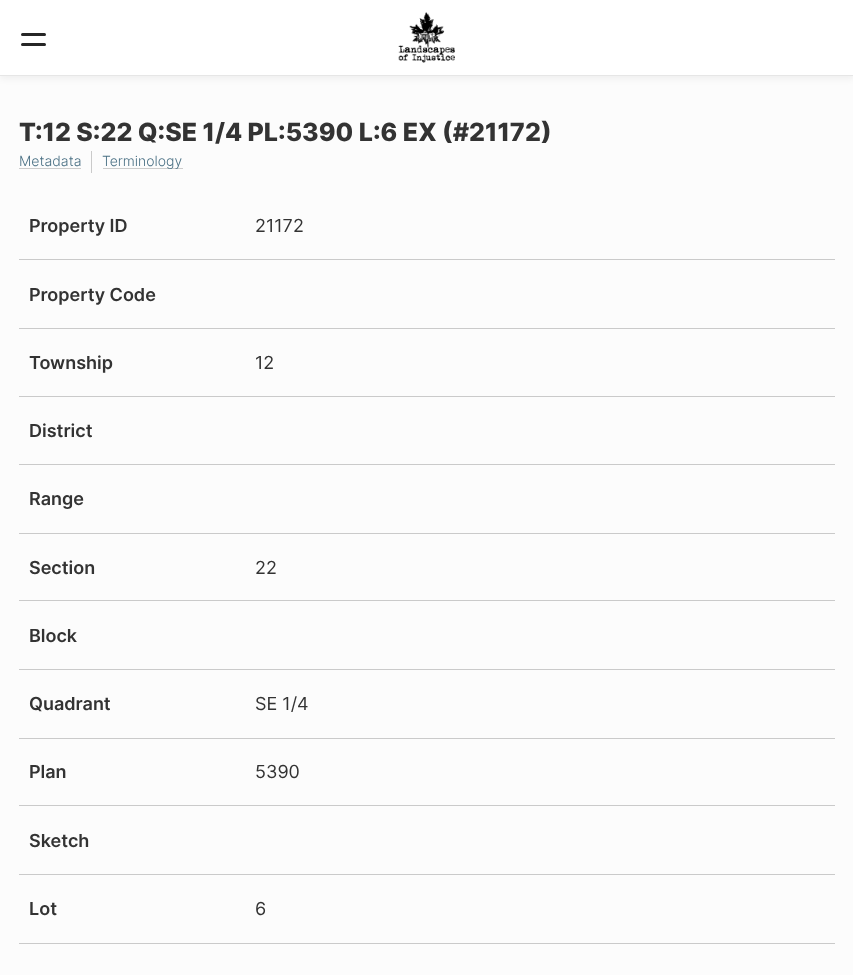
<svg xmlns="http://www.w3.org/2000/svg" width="853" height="975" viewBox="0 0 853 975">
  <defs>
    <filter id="blur1" x="-50%" y="-200%" width="200%" height="500%"><feGaussianBlur stdDeviation="3"/></filter>
  </defs>
  <rect width="100%" height="100%" fill="#fcfcfc"/>
  <rect x="0" y="3" width="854" height="76" fill="#000000" fill-opacity="0.05" filter="url(#blur1)"/>
  <rect x="0" y="0" width="853" height="75" fill="#ffffff"/>
  <rect x="0" y="75" width="853" height="1" fill="#e6e6e6"/>
  <rect x="21" y="33" width="25" height="3" rx="1.5" fill="#262626"/>
  <rect x="21" y="43" width="25" height="3" rx="1.5" fill="#262626"/>
  <image x="398" y="12" width="57" height="51" href="img1.png"/>
  <text x="19" y="141" font-family="Inter" font-size="25" font-weight="800" fill="#333333">T:12 S:22 Q:SE 1/4 PL:5390 L:6 EX (#21172)</text>
  <rect x="91" y="151" width="1" height="22" fill="#cacaca"/>
  <text x="19" y="166" font-family="Inter" font-size="14" font-weight="300" fill="#4a7084">Metadata</text>
  <rect x="19" y="168" width="62" height="1" fill="#cccccc"/>
  <rect x="103" y="168" width="80" height="1" fill="#cccccc"/>
  <text x="102" y="166" font-family="Inter" font-size="14" font-weight="300" fill="#4a7084">Terminology</text>
  <text x="29" y="232" font-family="Inter" font-size="18" font-weight="600" fill="#333333">Property ID</text>
  <rect x="19" y="259" width="816" height="1" fill="#cacaca"/>
  <text x="255" y="232" font-family="Inter" font-size="18" fill="#333333">21172</text>
  <text x="29" y="301" font-family="Inter" font-size="18" font-weight="600" fill="#333333">Property Code</text>
  <rect x="19" y="328" width="816" height="1" fill="#cacaca"/>
  <text x="29" y="369" font-family="Inter" font-size="18" font-weight="600" fill="#333333">Township</text>
  <rect x="19" y="396" width="816" height="1" fill="#cacaca"/>
  <text x="255" y="369" font-family="Inter" font-size="18" fill="#333333">12</text>
  <text x="29" y="437" font-family="Inter" font-size="18" font-weight="600" fill="#333333">District</text>
  <rect x="19" y="464" width="816" height="1" fill="#cacaca"/>
  <text x="29" y="505" font-family="Inter" font-size="18" font-weight="600" fill="#333333">Range</text>
  <rect x="19" y="533" width="816" height="1" fill="#cacaca"/>
  <text x="29" y="574" font-family="Inter" font-size="18" font-weight="600" fill="#333333">Section</text>
  <rect x="19" y="600" width="816" height="1" fill="#cacaca"/>
  <text x="255" y="574" font-family="Inter" font-size="18" fill="#333333">22</text>
  <text x="29" y="642" font-family="Inter" font-size="18" font-weight="600" fill="#333333">Block</text>
  <rect x="19" y="669" width="816" height="1" fill="#cacaca"/>
  <text x="29" y="710" font-family="Inter" font-size="18" font-weight="600" fill="#333333">Quadrant</text>
  <rect x="19" y="738" width="816" height="1" fill="#cacaca"/>
  <text x="255" y="710" font-family="Inter" font-size="18" fill="#333333">SE 1/4</text>
  <text x="29" y="778" font-family="Inter" font-size="18" font-weight="600" fill="#333333">Plan</text>
  <rect x="19" y="805" width="816" height="1" fill="#cacaca"/>
  <text x="255" y="778" font-family="Inter" font-size="18" fill="#333333">5390</text>
  <text x="29" y="847" font-family="Inter" font-size="18" font-weight="600" fill="#333333">Sketch</text>
  <rect x="19" y="874" width="816" height="1" fill="#cacaca"/>
  <text x="29" y="915" font-family="Inter" font-size="18" font-weight="600" fill="#333333">Lot</text>
  <rect x="19" y="943" width="816" height="1" fill="#cacaca"/>
  <text x="255" y="915" font-family="Inter" font-size="18" fill="#333333">6</text>
</svg>
